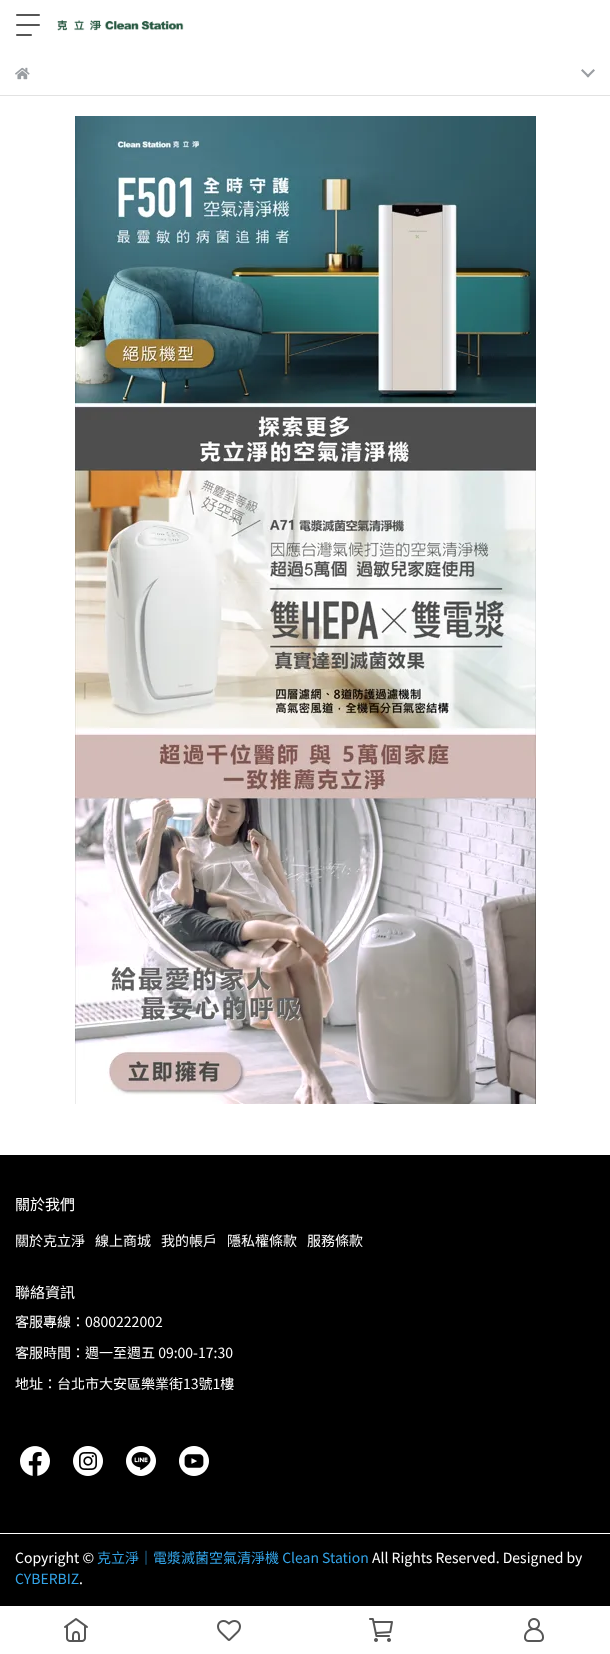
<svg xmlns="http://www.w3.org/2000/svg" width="610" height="1654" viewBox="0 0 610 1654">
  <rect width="100%" height="100%" fill="#ffffff"/>
  <image x="16" y="14" width="24" height="22" href="img1.png"/>
  <image x="57" y="20" width="127" height="11" href="img2.png"/>
  <image x="64" y="1618" width="24" height="24" href="img3.png"/>
  <image x="217" y="1620" width="24" height="21" href="img4.png"/>
  <image x="369" y="1618" width="24" height="24" href="img5.png"/>
  <image x="524" y="1618" width="20" height="24" href="img6.png"/>
  <rect x="0" y="95" width="610" height="1" fill="#e2e2e2"/>
  <image x="15" y="67" width="15" height="13" href="img7.png"/>
  <path d="M586.5 76L593.5 69L595 70.5L588 77.5Z" fill="#9a9ea2"/>
  <path d="M581 70.5L582.5 69L589.5 76L588 77.5Z" fill="#9a9ea2"/>
  <image x="75" y="116" width="461" height="988" href="img8.png"/>
  <rect x="0" y="1155" width="610" height="451" fill="#000000"/>
  <text x="15" y="1210" font-family="Noto Sans TC" font-size="15" fill="#ffffff">關於我們</text>
  <text x="15" y="1246" font-family="Noto Sans TC" font-size="14" fill="#ffffff">關於克立淨</text>
  <text x="95" y="1246" font-family="Noto Sans TC" font-size="14" fill="#ffffff">線上商城</text>
  <text x="161" y="1246" font-family="Noto Sans TC" font-size="14" fill="#ffffff">我的帳戶</text>
  <text x="227" y="1246" font-family="Noto Sans TC" font-size="14" fill="#ffffff">隱私權條款</text>
  <text x="307" y="1246" font-family="Noto Sans TC" font-size="14" fill="#ffffff">服務條款</text>
  <text x="15" y="1298" font-family="Noto Sans TC" font-size="15" fill="#ffffff">聯絡資訊</text>
  <text x="15" y="1327" font-family="Noto Sans TC" font-size="14" fill="#ffffff">客服專線：0800222002</text>
  <text x="15" y="1358" font-family="Noto Sans TC" font-size="14" fill="#ffffff">客服時間：週一至週五 09:00-17:30</text>
  <text x="15" y="1389" font-family="Noto Sans TC" font-size="14" fill="#ffffff">地址：台北市大安區樂業街13號1樓</text>
  <image x="20" y="1446" width="30" height="30" href="img9.png"/>
  <image x="73" y="1446" width="30" height="30" href="img10.png"/>
  <image x="126" y="1446" width="30" height="30" href="img11.png"/>
  <image x="179" y="1446" width="30" height="30" href="img12.png"/>
  <rect x="0" y="1533" width="610" height="1" fill="#ffffff"/>
  <text x="15" y="1563" font-family="Noto Sans TC" font-size="14" fill="#ffffff">Copyright ©</text>
  <text x="97" y="1563" font-family="Noto Sans TC" font-size="14" fill="#33a4e8">克立淨｜電漿滅菌空氣清淨機 Clean Station</text>
  <text x="372" y="1563" font-family="Noto Sans TC" font-size="14" fill="#ffffff">All Rights Reserved. Designed by</text>
  <text x="15" y="1584" font-family="Noto Sans TC" font-size="14" fill="#33a4e8">CYBERBIZ</text>
  <text x="79" y="1584" font-family="Noto Sans TC" font-size="14" fill="#ffffff">.</text>
</svg>
